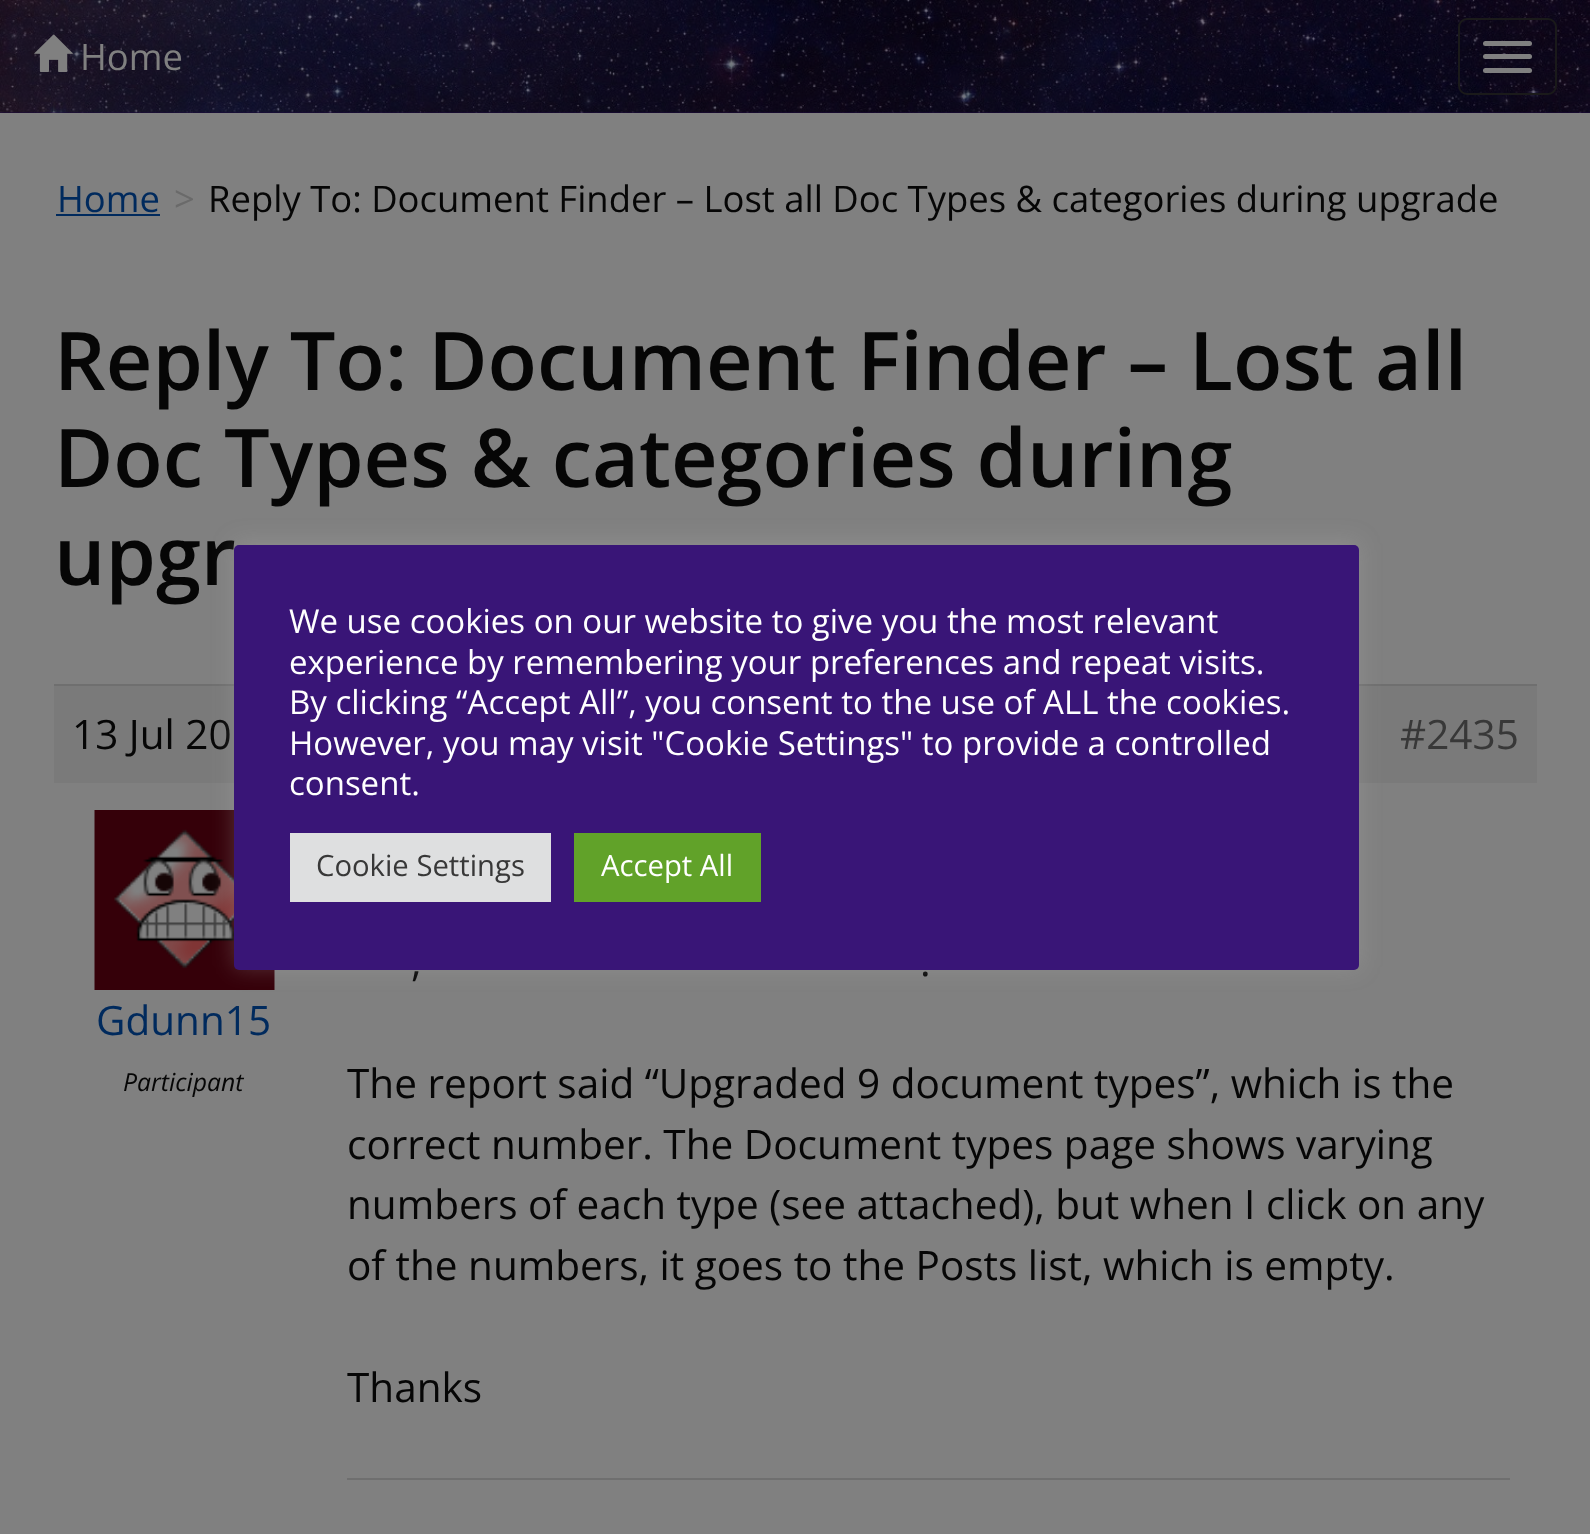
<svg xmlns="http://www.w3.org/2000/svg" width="1590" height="1534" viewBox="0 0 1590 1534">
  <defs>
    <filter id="blur1" x="-50%" y="-200%" width="200%" height="500%"><feGaussianBlur stdDeviation="11"/></filter>
  </defs>
  <rect width="100%" height="100%" fill="#1d0b3c"/>
  <image x="0" y="0" width="1590" height="113" href="img1.png"/>
  <image x="34" y="34" width="39" height="38" href="img2.png"/>
  <text x="80" y="70" font-family="Open Sans" font-size="36.45" fill="#808080">Home</text>
  <rect x="1459" y="19" width="97" height="75" rx="8" fill="none" stroke="#1a1a1a" stroke-width="2"/>
  <rect x="1483" y="41" width="49" height="5" rx="2.5" fill="#808080"/>
  <rect x="1483" y="54" width="49" height="5" rx="2.5" fill="#808080"/>
  <rect x="1483" y="68" width="49" height="5" rx="2.5" fill="#808080"/>
  <rect x="0" y="113" width="1590" height="1421" fill="#808080"/>
  <text x="57" y="212" font-family="Open Sans" font-size="36.45" fill="#002a5d">Home</text>
  <rect x="56" y="214" width="104" height="2" fill="#002a5d"/>
  <text x="174" y="212" font-family="Open Sans" font-size="36.45" fill="#6a6a6a">&gt;</text>
  <text x="208" y="212" font-family="Open Sans" font-size="36.45" fill="#060606">Reply To: Document Finder – Lost all Doc Types &amp; categories during upgrade</text>
  <text x="54" y="390" font-family="Open Sans" font-size="81" font-weight="600" fill="#060606">Reply To: Document Finder – Lost all</text>
  <text x="54" y="487" font-family="Open Sans" font-size="81" font-weight="600" fill="#060606">Doc Types &amp; categories during</text>
  <text x="54" y="585" font-family="Open Sans" font-size="81" font-weight="600" fill="#060606">upgr</text>
  <rect x="54" y="686" width="1483" height="97" fill="#7a7a7a"/>
  <rect x="54" y="684" width="1483" height="2" fill="#6f6f6f"/>
  <text x="72" y="749" font-family="Open Sans" font-size="40.5" fill="#060606">13 Jul 20</text>
  <text x="1400" y="749" font-family="Open Sans" font-size="40.5" fill="#383838">#2435</text>
  <image x="94" y="810" width="181" height="180" href="img3.png"/>
  <text x="96" y="1035" font-family="Open Sans" font-size="40.5" fill="#002a5d">Gdunn15</text>
  <text x="123" y="1091" font-family="Open Sans" font-size="24.75" font-style="italic" fill="#060606">Participant</text>
  <text x="411" y="976" font-family="Open Sans" font-size="40.5" fill="#060606">,</text>
  <text x="920" y="976" font-family="Open Sans" font-size="40.5" fill="#060606">.</text>
  <text x="347" y="1098" font-family="Open Sans" font-size="40.5" fill="#060606">The report said “Upgraded 9 document types”, which is the</text>
  <text x="347" y="1159" font-family="Open Sans" font-size="40.5" fill="#060606">correct number. The Document types page shows varying</text>
  <text x="347" y="1219" font-family="Open Sans" font-size="40.5" fill="#060606">numbers of each type (see attached), but when I click on any</text>
  <text x="347" y="1280" font-family="Open Sans" font-size="40.5" fill="#060606">of the numbers, it goes to the Posts list, which is empty.</text>
  <text x="347" y="1402" font-family="Open Sans" font-size="40.5" fill="#060606">Thanks</text>
  <rect x="347" y="1478" width="1163" height="2" fill="#6f6f6f"/>
  <rect x="234" y="542" width="1125" height="426" rx="5" fill="#acabab" fill-opacity="0.3" filter="url(#blur1)"/>
  <rect x="234" y="545" width="1125" height="425" rx="5" fill="#391577"/>
  <text x="289" y="633" font-family="Open Sans" font-size="33" fill="#ffffff">We use cookies on our website to give you the most relevant</text>
  <text x="289" y="674" font-family="Open Sans" font-size="33" fill="#ffffff">experience by remembering your preferences and repeat visits.</text>
  <text x="289" y="714" font-family="Open Sans" font-size="33" fill="#ffffff">By clicking “Accept All”, you consent to the use of ALL the cookies.</text>
  <text x="289" y="755" font-family="Open Sans" font-size="33" fill="#ffffff">However, you may visit "Cookie Settings" to provide a controlled</text>
  <text x="289" y="795" font-family="Open Sans" font-size="33" fill="#ffffff">consent.</text>
  <rect x="290" y="833" width="261" height="69" fill="#dedfe0"/>
  <text x="316" y="876" font-family="Open Sans" font-size="29.25" fill="#383838">Cookie Settings</text>
  <rect x="574" y="833" width="187" height="69" fill="#61a229"/>
  <text x="601" y="876" font-family="Open Sans" font-size="29.25" fill="#ffffff">Accept All</text>
</svg>
